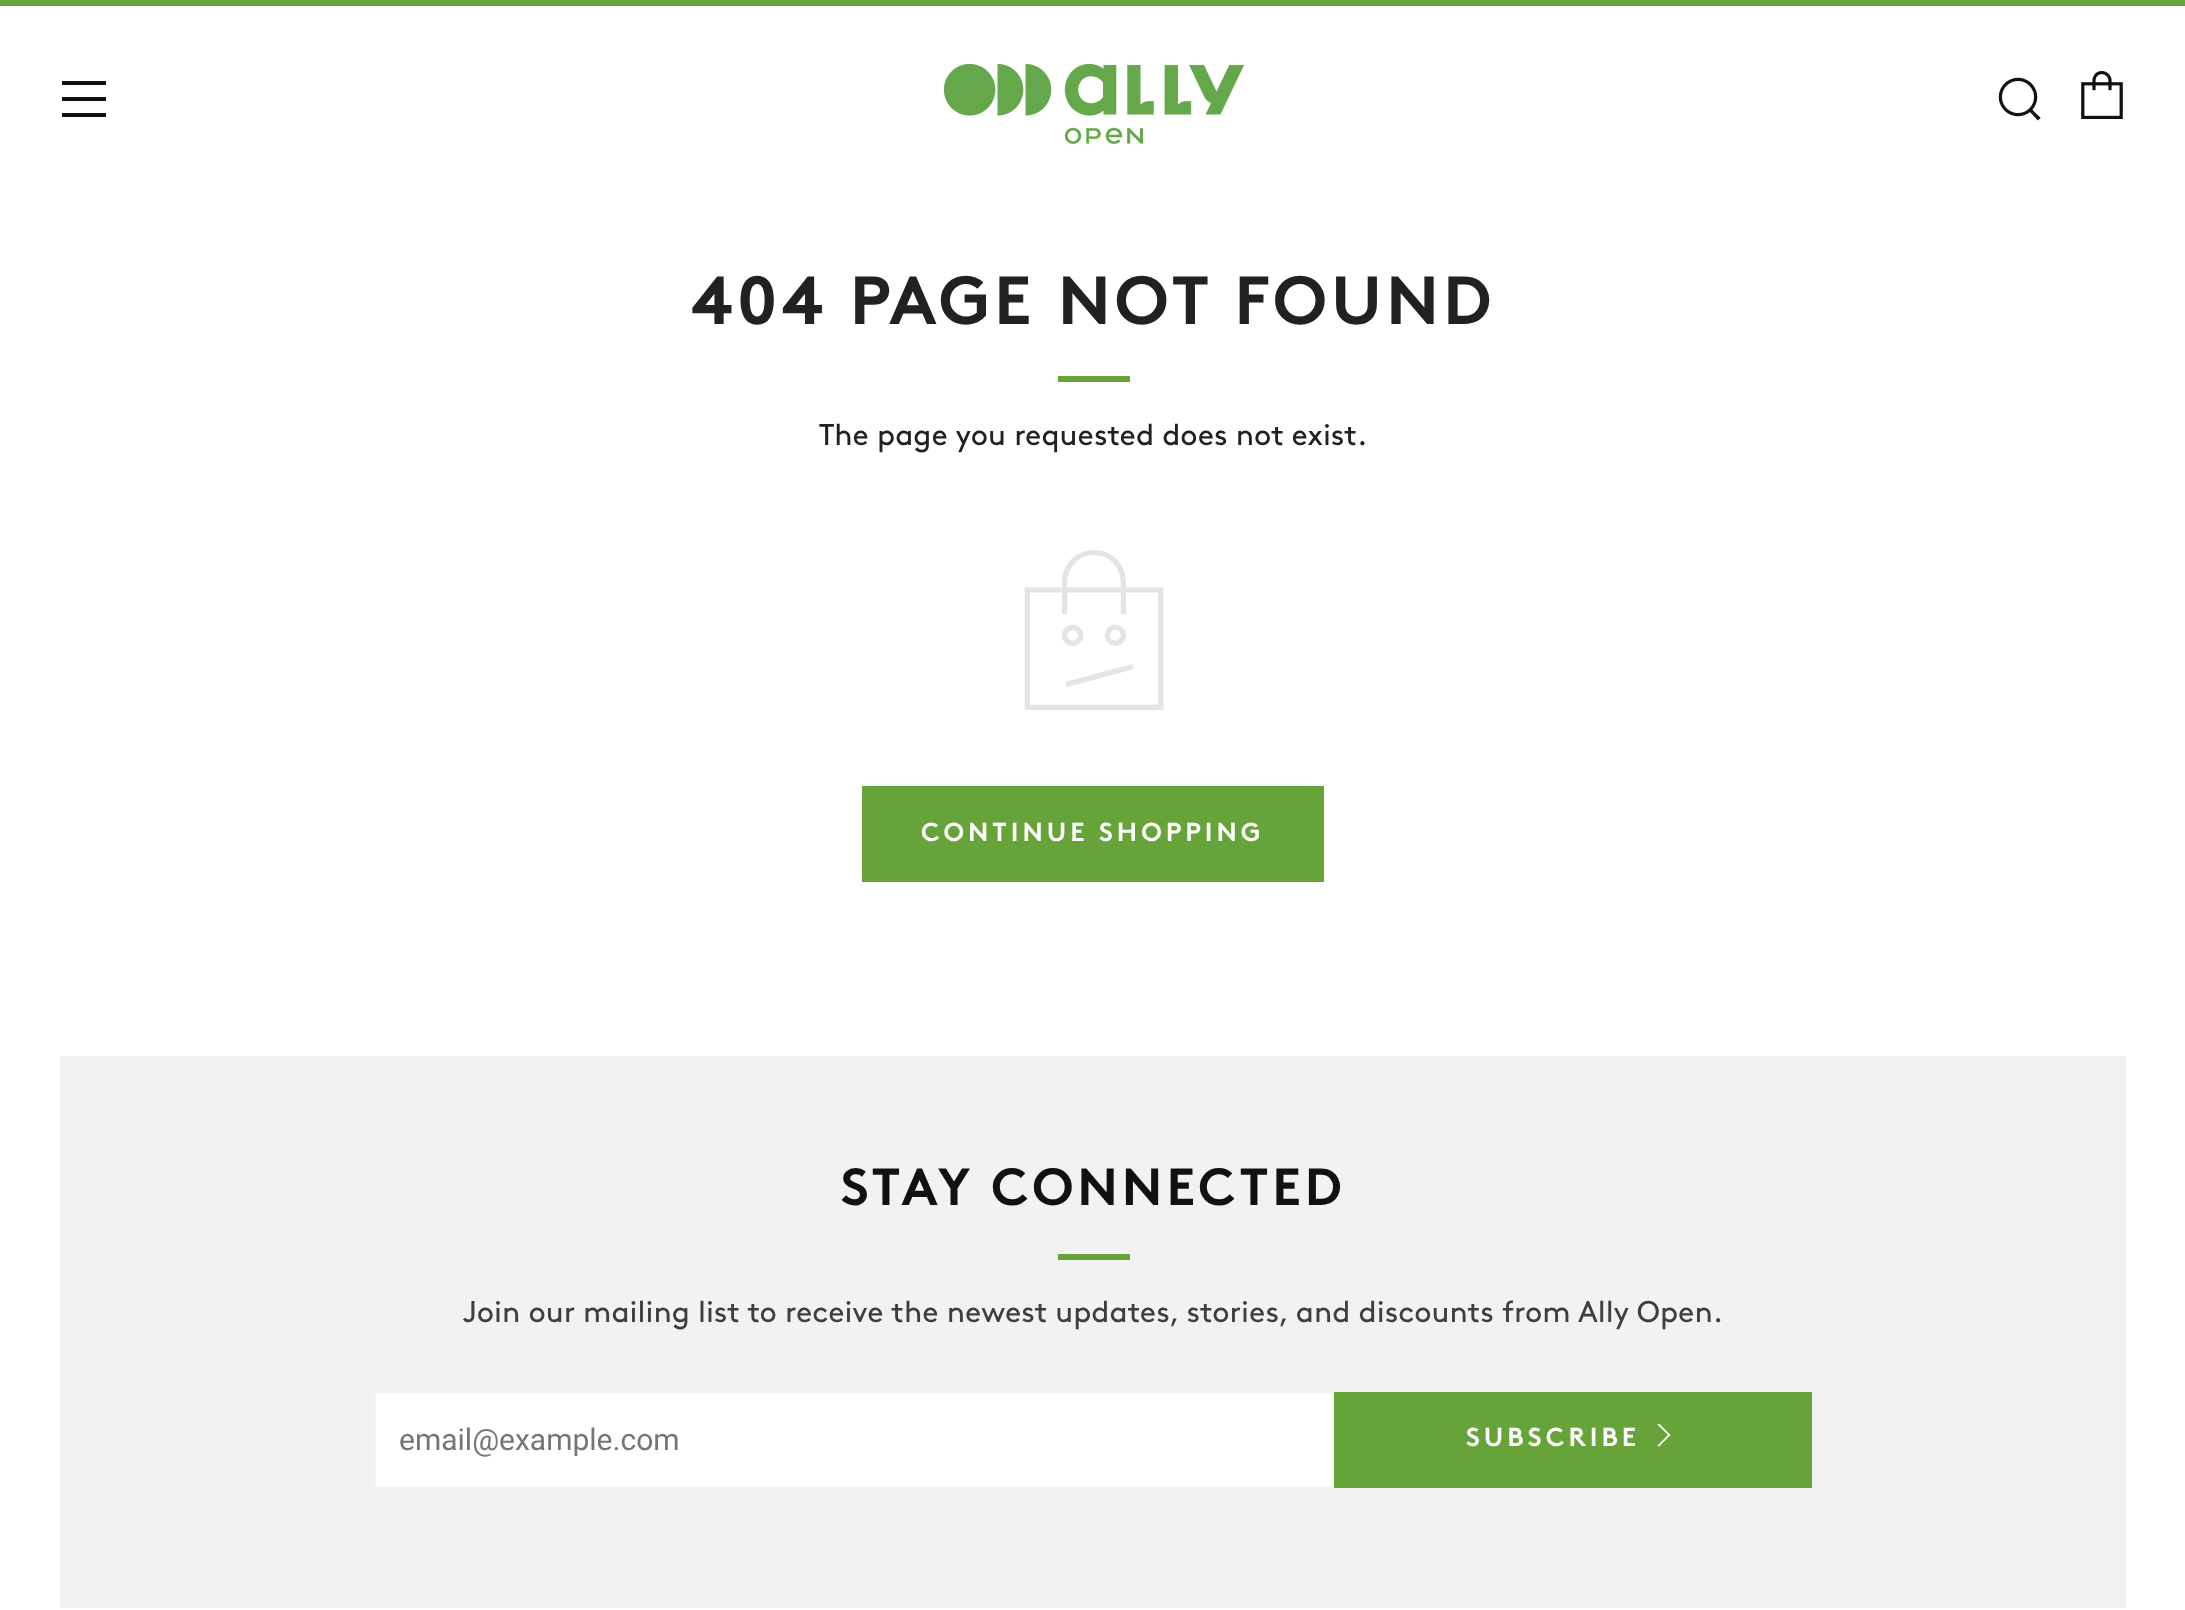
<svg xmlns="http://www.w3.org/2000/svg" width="2185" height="1610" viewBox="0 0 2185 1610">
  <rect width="100%" height="100%" fill="#ffffff"/>
  <rect x="0" y="0" width="2185" height="6" fill="#66a338"/>
  <path d="M62 85H106V81H62ZM62 117H106V113H62ZM62 101H106V97H62Z" fill="#111111"/>
  <image x="944" y="64" width="300" height="80" href="img1.png"/>
  <image x="1998" y="77" width="43" height="44" href="img2.png"/>
  <image x="2081" y="71" width="42" height="48" href="img3.png"/>
  <text x="691" y="324" font-family="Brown" font-size="68" font-weight="bold" letter-spacing="4" fill="#212121">404 PAGE NOT FOUND</text>
  <rect x="1058" y="376" width="72" height="6" fill="#66a338"/>
  <text x="819" y="445" font-family="Brown" font-size="30" fill="#212121">The page you requested does not exist.</text>
  <image x="1024" y="550" width="140" height="160" href="img4.png"/>
  <rect x="862" y="786" width="462" height="96" fill="#66a338"/>
  <text x="921" y="841" font-family="Brown" font-size="26" font-weight="bold" letter-spacing="4" fill="#ffffff">CONTINUE SHOPPING</text>
  <rect x="60" y="1056" width="2066" height="552" fill="#f2f2f2"/>
  <text x="841" y="1205" font-family="Brown" font-size="52" font-weight="bold" letter-spacing="4" fill="#111111">STAY CONNECTED</text>
  <rect x="1058" y="1254" width="72" height="6" fill="#66a338"/>
  <text x="463" y="1322" font-family="Brown" font-size="30" fill="#3e3e3e">Join our mailing list to receive the newest updates, stories, and discounts from Ally Open.</text>
  <rect x="375" y="1393" width="958" height="94" fill="#ffffff" stroke="#f5f5f5" stroke-width="2"/>
  <text x="399" y="1450" font-family="Roboto" font-size="30" fill="#757575">email@example.com</text>
  <rect x="1334" y="1392" width="478" height="96" fill="#66a338"/>
  <text x="1466" y="1446" font-family="Brown" font-size="26" font-weight="bold" letter-spacing="4" fill="#ffffff">SUBSCRIBE</text>
  <path d="M1657.5 1445.5L1659 1446.5L1670.5 1435L1659 1423.5L1657.5 1424.5L1668 1435Z" fill="#ffffff"/>
</svg>
